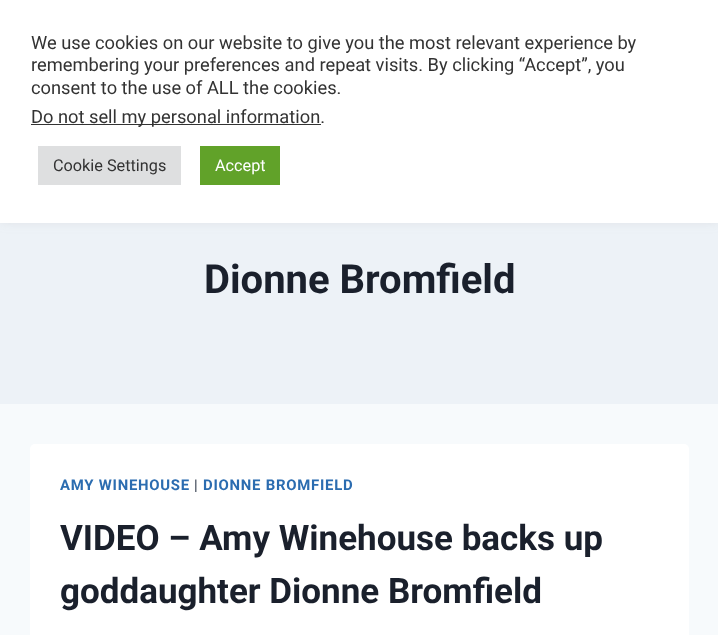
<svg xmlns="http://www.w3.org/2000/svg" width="718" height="635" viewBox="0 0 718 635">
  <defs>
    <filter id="blur1" x="-50%" y="-200%" width="200%" height="500%"><feGaussianBlur stdDeviation="6"/></filter>
  </defs>
  <rect width="100%" height="100%" fill="#f7fafc"/>
  <rect x="0" y="223" width="718" height="181" fill="#edf2f7"/>
  <rect x="0" y="-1" width="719" height="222" fill="#acabab" fill-opacity="0.3" filter="url(#blur1)"/>
  <rect x="0" y="0" width="718" height="223" fill="#ffffff"/>
  <text x="31" y="49" font-family="Roboto" font-size="18.3" fill="#333333">We use cookies on our website to give you the most relevant experience by</text>
  <text x="31" y="71" font-family="Roboto" font-size="18.3" fill="#333333">remembering your preferences and repeat visits. By clicking “Accept”, you</text>
  <text x="31" y="94" font-family="Roboto" font-size="18.3" fill="#333333">consent to the use of ALL the cookies.</text>
  <rect x="31" y="124" width="290" height="1" fill="#333333"/>
  <text x="31" y="123" font-family="Roboto" font-size="18.3" fill="#333333">Do not sell my personal information.</text>
  <rect x="38" y="146" width="143" height="39" fill="#dedfe0"/>
  <text x="53" y="171" font-family="Roboto" font-size="16.25" fill="#333333">Cookie Settings</text>
  <rect x="200" y="146" width="80" height="39" fill="#61a229"/>
  <text x="215" y="171" font-family="Roboto" font-size="16.25" fill="#ffffff">Accept</text>
  <text x="204" y="293" font-family="Roboto" font-size="40" font-weight="bold" fill="#1a202c">Dionne Bromfield</text>
  <rect x="30" y="444" width="659" height="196" rx="5" fill="#ffffff"/>
  <text x="60" y="490" font-family="Roboto" font-size="14.9" font-weight="bold" letter-spacing="0.75" fill="#2b6cb0">AMY WINEHOUSE</text>
  <text x="194" y="490" font-family="Roboto" font-size="14.9" letter-spacing="0.75" fill="#2d3748">|</text>
  <text x="203" y="490" font-family="Roboto" font-size="14.9" font-weight="bold" letter-spacing="0.75" fill="#2b6cb0">DIONNE BROMFIELD</text>
  <text x="60" y="550" font-family="Roboto" font-size="35" font-weight="bold" fill="#1a202c">VIDEO – Amy Winehouse backs up</text>
  <text x="60" y="603" font-family="Roboto" font-size="35" font-weight="bold" fill="#1a202c">goddaughter Dionne Bromfield</text>
</svg>
